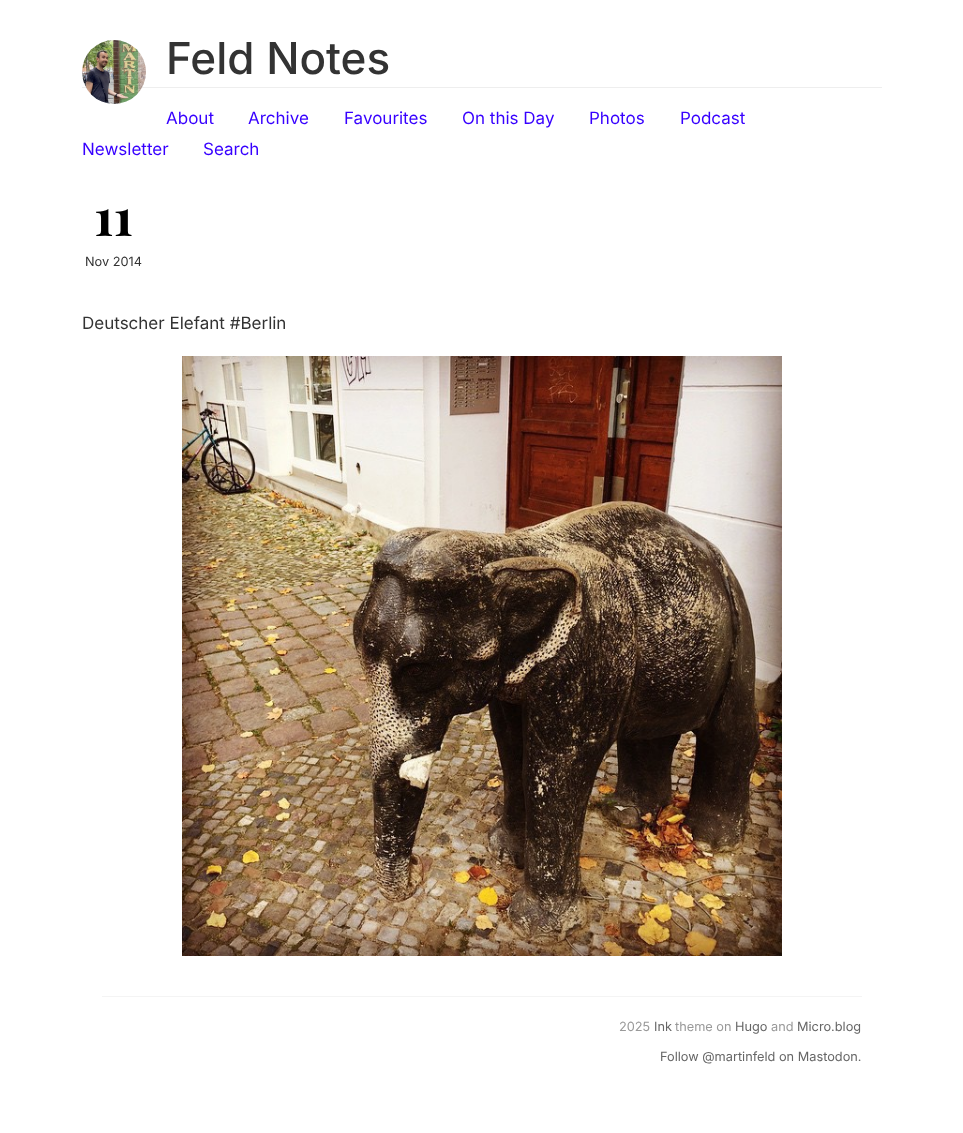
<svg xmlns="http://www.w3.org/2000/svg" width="963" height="1133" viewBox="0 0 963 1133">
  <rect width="100%" height="100%" fill="#ffffff"/>
  <rect x="82" y="87" width="800" height="1" fill="#eeeeee"/>
  <image x="82" y="40" width="64" height="64" href="img1.png"/>
  <text x="166" y="74" font-family="Inter" font-size="44" font-weight="500" fill="#333333">Feld Notes</text>
  <text x="166" y="124" font-family="Inter" font-size="17" fill="#3700ff">About</text>
  <text x="248" y="124" font-family="Inter" font-size="17" fill="#3700ff">Archive</text>
  <text x="344" y="124" font-family="Inter" font-size="17" fill="#3700ff">Favourites</text>
  <text x="462" y="124" font-family="Inter" font-size="17" fill="#3700ff">On this Day</text>
  <text x="589" y="124" font-family="Inter" font-size="17" fill="#3700ff">Photos</text>
  <text x="680" y="124" font-family="Inter" font-size="17" fill="#3700ff">Podcast</text>
  <text x="82" y="155" font-family="Inter" font-size="17" fill="#3700ff">Newsletter</text>
  <text x="203" y="155" font-family="Inter" font-size="17" fill="#3700ff">Search</text>
  <text x="94" y="236" font-family="Playfair Display" font-size="51" font-weight="bold" fill="#000000">11</text>
  <text x="85" y="266" font-family="Inter" font-size="12.75" fill="#333333">Nov 2014</text>
  <text x="82" y="329" font-family="Inter" font-size="17" fill="#333333">Deutscher Elefant #Berlin</text>
  <image x="182" y="356" width="600" height="600" href="img2.png"/>
  <rect x="102" y="996" width="760" height="1" fill="#f4f4f4"/>
  <text x="619" y="1031" font-family="Inter" font-size="12.75" fill="#999999">2025</text>
  <text x="654" y="1031" font-family="Inter" font-size="12.75" fill="#666666">Ink</text>
  <text x="675" y="1031" font-family="Inter" font-size="12.75" fill="#999999">theme on</text>
  <text x="735" y="1031" font-family="Inter" font-size="12.75" fill="#666666">Hugo</text>
  <text x="771" y="1031" font-family="Inter" font-size="12.75" fill="#999999">and</text>
  <text x="797" y="1031" font-family="Inter" font-size="12.75" fill="#666666">Micro.blog</text>
  <text x="660" y="1061" font-family="Inter" font-size="12.75" fill="#666666">Follow @martinfeld on Mastodon.</text>
</svg>
